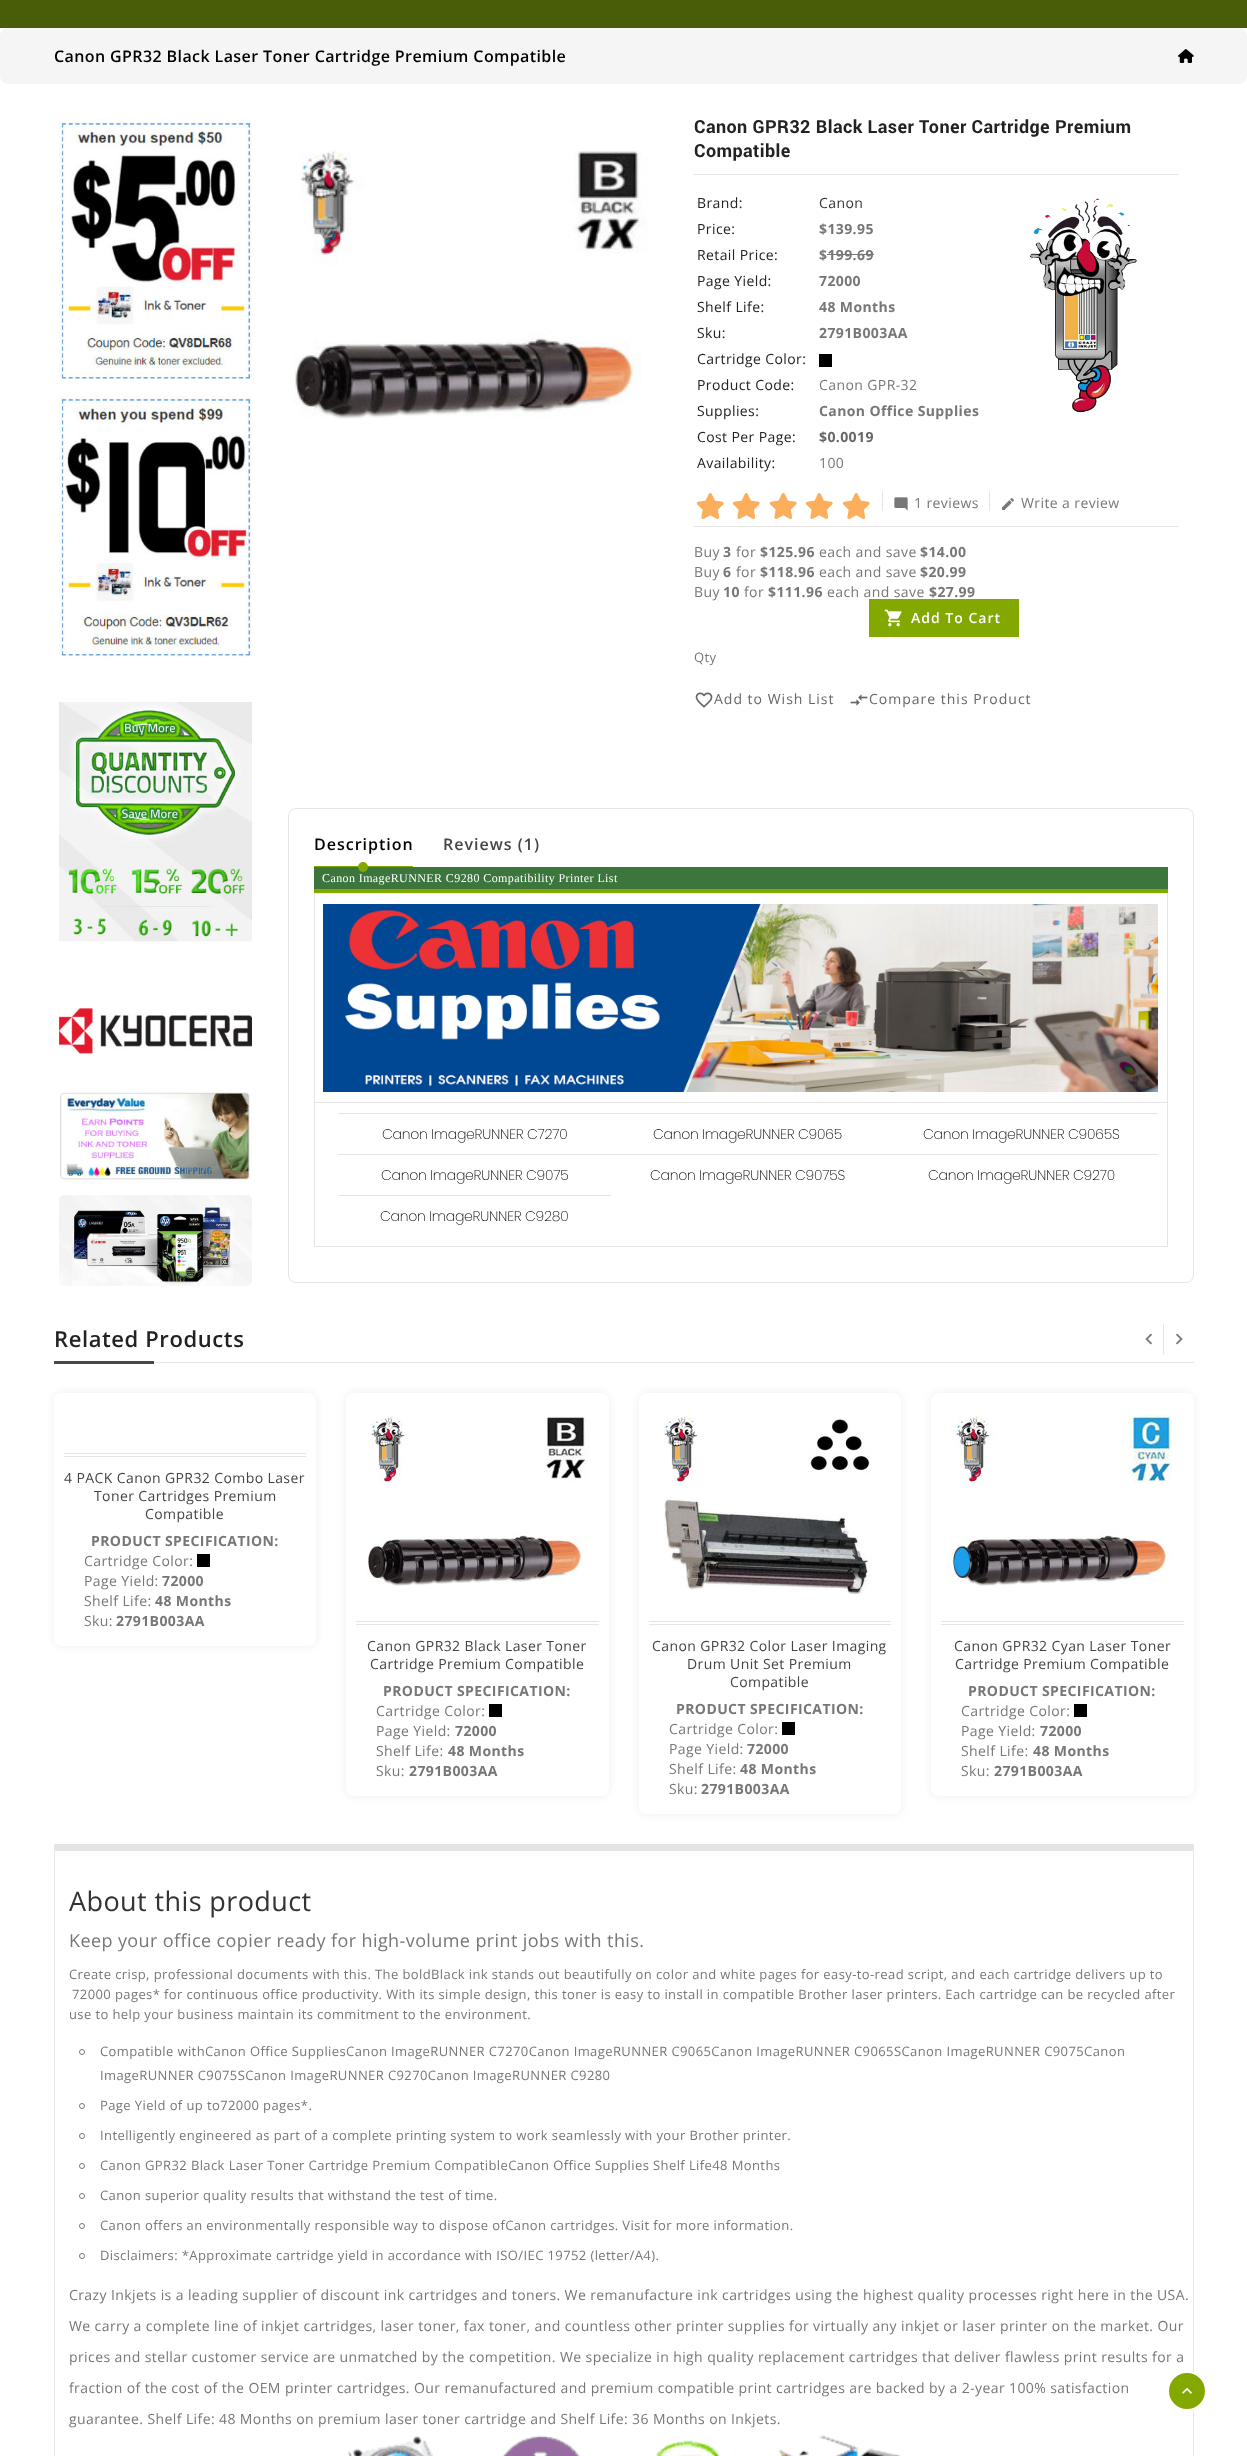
<svg xmlns="http://www.w3.org/2000/svg" width="1247" height="2456" viewBox="0 0 1247 2456">
  <defs>
    <filter id="blur1" x="-50%" y="-200%" width="200%" height="500%"><feGaussianBlur stdDeviation="5"/></filter>
  </defs>
  <rect width="100%" height="100%" fill="#ffffff"/>
  <rect x="0" y="0" width="1247" height="28" fill="#495c07"/>
  <rect x="0" y="28" width="1247" height="56" rx="8" fill="#f5f5f5"/>
  <text x="54" y="62" font-family="Open Sans" font-size="16" font-weight="600" letter-spacing="0.4" fill="#000000">Canon GPR32 Black Laser Toner Cartridge Premium Compatible</text>
  <image x="1178" y="49" width="16" height="14" href="img1.png"/>
  <image x="59" y="119" width="193" height="261" href="img2.png"/>
  <image x="59" y="395" width="193" height="262" href="img3.png"/>
  <image x="59" y="702" width="193" height="240" href="img4.png"/>
  <image x="59" y="1008" width="193" height="46" href="img5.png"/>
  <image x="60" y="1092" width="192" height="90" href="img6.png"/>
  <image x="59" y="1195" width="193" height="91" href="img7.png"/>
  <image x="293" y="150" width="355" height="269" href="img8.png"/>
  <rect x="694" y="174" width="484" height="1" fill="#e5e5e5"/>
  <text x="694" y="133" font-family="Roboto" font-size="18" font-weight="bold" letter-spacing="0.4" fill="#222222">Canon GPR32 Black Laser Toner Cartridge Premium</text>
  <text x="694" y="157" font-family="Roboto" font-size="18" font-weight="bold" letter-spacing="0.4" fill="#222222">Compatible</text>
  <text x="697" y="208" font-family="Open Sans" font-size="14" letter-spacing="0.4" fill="#222222">Brand:</text>
  <text x="819" y="208" font-family="Open Sans" font-size="14" letter-spacing="0.4" fill="#333333">Canon</text>
  <text x="697" y="234" font-family="Open Sans" font-size="14" letter-spacing="0.4" fill="#222222">Price:</text>
  <text x="819" y="234" font-family="Open Sans" font-size="14" font-weight="bold" letter-spacing="0.4" fill="#777777">$139.95</text>
  <text x="697" y="260" font-family="Open Sans" font-size="14" letter-spacing="0.4" fill="#222222">Retail Price:</text>
  <text x="819" y="260" font-family="Open Sans" font-size="14" font-weight="bold" letter-spacing="0.4" fill="#777777">$199.69</text>
  <rect x="827" y="254" width="47" height="1" fill="#777777"/>
  <text x="697" y="286" font-family="Open Sans" font-size="14" letter-spacing="0.4" fill="#222222">Page Yield:</text>
  <text x="819" y="286" font-family="Open Sans" font-size="14" font-weight="bold" letter-spacing="0.4" fill="#777777">72000</text>
  <text x="697" y="312" font-family="Open Sans" font-size="14" letter-spacing="0.4" fill="#222222">Shelf Life:</text>
  <text x="819" y="312" font-family="Open Sans" font-size="14" font-weight="bold" letter-spacing="0.4" fill="#777777">48 Months</text>
  <text x="697" y="338" font-family="Open Sans" font-size="14" letter-spacing="0.4" fill="#222222">Sku:</text>
  <text x="819" y="338" font-family="Open Sans" font-size="14" font-weight="bold" letter-spacing="0.4" fill="#777777">2791B003AA</text>
  <text x="697" y="364" font-family="Open Sans" font-size="14" letter-spacing="0.4" fill="#222222">Cartridge Color:</text>
  <rect x="819" y="354" width="13" height="13" fill="#000000"/>
  <text x="697" y="390" font-family="Open Sans" font-size="14" letter-spacing="0.4" fill="#222222">Product Code:</text>
  <text x="819" y="390" font-family="Open Sans" font-size="14" letter-spacing="0.4" fill="#777777">Canon GPR-32</text>
  <text x="697" y="416" font-family="Open Sans" font-size="14" letter-spacing="0.4" fill="#222222">Supplies:</text>
  <text x="819" y="416" font-family="Open Sans" font-size="14" font-weight="bold" letter-spacing="0.4" fill="#777777">Canon Office Supplies</text>
  <text x="697" y="442" font-family="Open Sans" font-size="14" letter-spacing="0.4" fill="#222222">Cost Per Page:</text>
  <text x="819" y="442" font-family="Open Sans" font-size="14" font-weight="bold" letter-spacing="0.4" fill="#666666">$0.0019</text>
  <text x="697" y="468" font-family="Open Sans" font-size="14" letter-spacing="0.4" fill="#222222">Availability:</text>
  <text x="819" y="468" font-family="Open Sans" font-size="14" letter-spacing="0.4" fill="#777777">100</text>
  <image x="1030" y="198" width="107" height="215" href="img9.png"/>
  <rect x="882" y="491" width="1" height="20" fill="#e5e5e5"/>
  <image x="696" y="493" width="28" height="26" href="img10.png"/>
  <image x="732" y="493" width="28" height="26" href="img10.png"/>
  <image x="769" y="493" width="28" height="26" href="img10.png"/>
  <image x="805" y="493" width="28" height="26" href="img10.png"/>
  <image x="842" y="493" width="28" height="26" href="img10.png"/>
  <rect x="989" y="491" width="1" height="20" fill="#e5e5e5"/>
  <image x="894" y="497" width="14" height="14" href="img11.png"/>
  <text x="914" y="508" font-family="Open Sans" font-size="14" letter-spacing="0.4" fill="#777777">1 reviews</text>
  <image x="1002" y="498" width="12" height="12" href="img12.png"/>
  <text x="1021" y="508" font-family="Open Sans" font-size="14" letter-spacing="0.4" fill="#777777">Write a review</text>
  <rect x="694" y="526" width="484" height="1" fill="#e5e5e5"/>
  <text x="694" y="557" font-family="Open Sans" font-size="14" letter-spacing="0.4" fill="#777777">Buy</text>
  <text x="723" y="557" font-family="Open Sans" font-size="14" font-weight="bold" letter-spacing="0.4" fill="#777777">3</text>
  <text x="736" y="557" font-family="Open Sans" font-size="14" letter-spacing="0.4" fill="#777777">for</text>
  <text x="760" y="557" font-family="Open Sans" font-size="14" font-weight="bold" letter-spacing="0.4" fill="#777777">$125.96</text>
  <text x="819" y="557" font-family="Open Sans" font-size="14" letter-spacing="0.4" fill="#777777">each and save</text>
  <text x="920" y="557" font-family="Open Sans" font-size="14" font-weight="bold" letter-spacing="0.4" fill="#777777">$14.00</text>
  <text x="694" y="577" font-family="Open Sans" font-size="14" letter-spacing="0.4" fill="#777777">Buy</text>
  <text x="723" y="577" font-family="Open Sans" font-size="14" font-weight="bold" letter-spacing="0.4" fill="#777777">6</text>
  <text x="736" y="577" font-family="Open Sans" font-size="14" letter-spacing="0.4" fill="#777777">for</text>
  <text x="760" y="577" font-family="Open Sans" font-size="14" font-weight="bold" letter-spacing="0.4" fill="#777777">$118.96</text>
  <text x="819" y="577" font-family="Open Sans" font-size="14" letter-spacing="0.4" fill="#777777">each and save</text>
  <text x="920" y="577" font-family="Open Sans" font-size="14" font-weight="bold" letter-spacing="0.4" fill="#777777">$20.99</text>
  <text x="694" y="597" font-family="Open Sans" font-size="14" letter-spacing="0.4" fill="#777777">Buy</text>
  <text x="723" y="597" font-family="Open Sans" font-size="14" font-weight="bold" letter-spacing="0.4" fill="#777777">10</text>
  <text x="744" y="597" font-family="Open Sans" font-size="14" letter-spacing="0.4" fill="#777777">for</text>
  <text x="768" y="597" font-family="Open Sans" font-size="14" font-weight="bold" letter-spacing="0.4" fill="#777777">$111.96</text>
  <text x="827" y="597" font-family="Open Sans" font-size="14" letter-spacing="0.4" fill="#777777">each and save</text>
  <text x="929" y="597" font-family="Open Sans" font-size="14" font-weight="bold" letter-spacing="0.4" fill="#777777">$27.99</text>
  <rect x="869" y="599" width="150" height="38" fill="#83a900"/>
  <image x="884" y="609" width="18" height="18" href="img13.png"/>
  <text x="911" y="623" font-family="Open Sans" font-size="14" font-weight="600" letter-spacing="1" fill="#ffffff">Add To Cart</text>
  <text x="694" y="662" font-family="Open Sans" font-size="13" letter-spacing="0.4" fill="#777777">Qty</text>
  <image x="695" y="692" width="18" height="16" href="img14.png"/>
  <text x="714" y="704" font-family="Open Sans" font-size="14" letter-spacing="1" fill="#666666">Add to Wish List</text>
  <image x="850" y="694" width="18" height="12" href="img15.png"/>
  <text x="869" y="704" font-family="Open Sans" font-size="14" letter-spacing="1" fill="#666666">Compare this Product</text>
  <rect x="288.5" y="808.5" width="905" height="474" rx="7.5" fill="none" stroke="#e5e5e5"/>
  <text x="314" y="850" font-family="Open Sans" font-size="16" font-weight="600" letter-spacing="1" fill="#000000">Description</text>
  <rect x="314" y="866" width="99" height="1" fill="#83a900"/>
  <rect x="314" y="867" width="854" height="22" fill="#3c763d"/>
  <circle cx="363" cy="867" r="5" fill="#83a900"/>
  <text x="443" y="850" font-family="Open Sans" font-size="16" font-weight="600" letter-spacing="1" fill="#444444">Reviews (1)</text>
  <rect x="314" y="889" width="854" height="4" fill="#83a900"/>
  <text x="322" y="882" font-family="Liberation Serif" font-size="12" letter-spacing="0.4" fill="#ffffff">Canon ImageRUNNER C9280 Compatibility Printer List</text>
  <rect x="314" y="893" width="854" height="1" fill="#eaeaea"/>
  <image x="323" y="904" width="835" height="188" href="img16.png"/>
  <rect x="314" y="1102" width="854" height="1" fill="#e5e5e5"/>
  <rect x="1167" y="893" width="1" height="354" fill="#e5e5e5"/>
  <rect x="314" y="1246" width="854" height="1" fill="#e5e5e5"/>
  <rect x="314" y="893" width="1" height="354" fill="#e5e5e5"/>
  <rect x="338" y="1113" width="820" height="1" fill="#e5e5e5"/>
  <text x="382" y="1139" font-family="Poppins" font-size="14" font-weight="200" letter-spacing="-0.25" fill="#000000">Canon ImageRUNNER C7270</text>
  <text x="653" y="1139" font-family="Poppins" font-size="14" font-weight="200" letter-spacing="-0.25" fill="#000000">Canon ImageRUNNER C9065</text>
  <text x="923" y="1139" font-family="Poppins" font-size="14" font-weight="200" letter-spacing="-0.25" fill="#000000">Canon ImageRUNNER C9065S</text>
  <rect x="338" y="1154" width="820" height="1" fill="#e5e5e5"/>
  <text x="381" y="1180" font-family="Poppins" font-size="14" font-weight="200" letter-spacing="-0.25" fill="#000000">Canon ImageRUNNER C9075</text>
  <text x="650" y="1180" font-family="Poppins" font-size="14" font-weight="200" letter-spacing="-0.25" fill="#000000">Canon ImageRUNNER C9075S</text>
  <text x="928" y="1180" font-family="Poppins" font-size="14" font-weight="200" letter-spacing="-0.25" fill="#000000">Canon ImageRUNNER C9270</text>
  <rect x="338" y="1195" width="273" height="1" fill="#e5e5e5"/>
  <text x="380" y="1221" font-family="Poppins" font-size="14" font-weight="200" letter-spacing="-0.25" fill="#000000">Canon ImageRUNNER C9280</text>
  <rect x="154" y="1362" width="1040" height="1" fill="#e5e5e5"/>
  <text x="54" y="1347" font-family="Open Sans" font-size="22" font-weight="600" letter-spacing="0.6" fill="#222222">Related Products</text>
  <rect x="54" y="1361" width="100" height="3" fill="#474747"/>
  <rect x="1163" y="1324" width="1" height="30" fill="#e5e5e5"/>
  <image x="1145" y="1333" width="7" height="12" href="img17.png"/>
  <image x="1176" y="1333" width="7" height="12" href="img18.png"/>
  <rect x="54" y="1393" width="262" height="253" rx="8" fill="#eeeeee" filter="url(#blur1)"/>
  <rect x="54" y="1393" width="262" height="253" rx="8" fill="#ffffff"/>
  <rect x="64" y="1453" width="242" height="1" fill="#e5e5e5"/>
  <rect x="64" y="1456" width="242" height="1" fill="#e5e5e5"/>
  <text x="64" y="1483" font-family="Open Sans" font-size="14" letter-spacing="0.4" fill="#444444">4 PACK Canon GPR32 Combo Laser</text>
  <text x="94" y="1501" font-family="Open Sans" font-size="14" letter-spacing="0.4" fill="#444444">Toner Cartridges Premium</text>
  <text x="145" y="1519" font-family="Open Sans" font-size="14" letter-spacing="0.4" fill="#444444">Compatible</text>
  <text x="91" y="1546" font-family="Open Sans" font-size="14" font-weight="bold" letter-spacing="0.4" fill="#777777">PRODUCT SPECIFICATION:</text>
  <text x="84" y="1566" font-family="Open Sans" font-size="14" letter-spacing="0.4" fill="#777777">Cartridge Color:</text>
  <rect x="197" y="1554" width="13" height="13" fill="#000000"/>
  <text x="84" y="1586" font-family="Open Sans" font-size="14" letter-spacing="0.4" fill="#777777">Page Yield:</text>
  <text x="162" y="1586" font-family="Open Sans" font-size="14" font-weight="bold" letter-spacing="0.4" fill="#777777">72000</text>
  <text x="84" y="1606" font-family="Open Sans" font-size="14" letter-spacing="0.4" fill="#777777">Shelf Life:</text>
  <text x="155" y="1606" font-family="Open Sans" font-size="14" font-weight="bold" letter-spacing="0.4" fill="#777777">48 Months</text>
  <text x="84" y="1626" font-family="Open Sans" font-size="14" letter-spacing="0.4" fill="#777777">Sku:</text>
  <text x="116" y="1626" font-family="Open Sans" font-size="14" font-weight="bold" letter-spacing="0.4" fill="#777777">2791B003AA</text>
  <rect x="346" y="1393" width="263" height="403" rx="8" fill="#eeeeee" filter="url(#blur1)"/>
  <rect x="346" y="1393" width="263" height="403" rx="8" fill="#ffffff"/>
  <image x="366" y="1416" width="225" height="170" href="img19.png"/>
  <rect x="356" y="1621" width="243" height="1" fill="#e5e5e5"/>
  <rect x="356" y="1624" width="243" height="1" fill="#e5e5e5"/>
  <text x="367" y="1651" font-family="Open Sans" font-size="14" letter-spacing="0.4" fill="#444444">Canon GPR32 Black Laser Toner</text>
  <text x="370" y="1669" font-family="Open Sans" font-size="14" letter-spacing="0.4" fill="#444444">Cartridge Premium Compatible</text>
  <text x="383" y="1696" font-family="Open Sans" font-size="14" font-weight="bold" letter-spacing="0.4" fill="#777777">PRODUCT SPECIFICATION:</text>
  <text x="376" y="1716" font-family="Open Sans" font-size="14" letter-spacing="0.4" fill="#777777">Cartridge Color:</text>
  <rect x="489" y="1704" width="13" height="13" fill="#000000"/>
  <text x="376" y="1736" font-family="Open Sans" font-size="14" letter-spacing="0.4" fill="#777777">Page Yield:</text>
  <text x="455" y="1736" font-family="Open Sans" font-size="14" font-weight="bold" letter-spacing="0.4" fill="#777777">72000</text>
  <text x="376" y="1756" font-family="Open Sans" font-size="14" letter-spacing="0.4" fill="#777777">Shelf Life:</text>
  <text x="448" y="1756" font-family="Open Sans" font-size="14" font-weight="bold" letter-spacing="0.4" fill="#777777">48 Months</text>
  <text x="376" y="1776" font-family="Open Sans" font-size="14" letter-spacing="0.4" fill="#777777">Sku:</text>
  <text x="409" y="1776" font-family="Open Sans" font-size="14" font-weight="bold" letter-spacing="0.4" fill="#777777">2791B003AA</text>
  <rect x="639" y="1393" width="262" height="421" rx="8" fill="#eeeeee" filter="url(#blur1)"/>
  <rect x="639" y="1393" width="262" height="421" rx="8" fill="#ffffff"/>
  <image x="664" y="1416" width="208" height="179" href="img20.png"/>
  <rect x="649" y="1621" width="242" height="1" fill="#e5e5e5"/>
  <rect x="649" y="1624" width="242" height="1" fill="#e5e5e5"/>
  <text x="652" y="1651" font-family="Open Sans" font-size="14" letter-spacing="0.4" fill="#444444">Canon GPR32 Color Laser Imaging</text>
  <text x="687" y="1669" font-family="Open Sans" font-size="14" letter-spacing="0.4" fill="#444444">Drum Unit Set Premium</text>
  <text x="730" y="1687" font-family="Open Sans" font-size="14" letter-spacing="0.4" fill="#444444">Compatible</text>
  <text x="676" y="1714" font-family="Open Sans" font-size="14" font-weight="bold" letter-spacing="0.4" fill="#777777">PRODUCT SPECIFICATION:</text>
  <text x="669" y="1734" font-family="Open Sans" font-size="14" letter-spacing="0.4" fill="#777777">Cartridge Color:</text>
  <rect x="782" y="1722" width="13" height="13" fill="#000000"/>
  <text x="669" y="1754" font-family="Open Sans" font-size="14" letter-spacing="0.4" fill="#777777">Page Yield:</text>
  <text x="747" y="1754" font-family="Open Sans" font-size="14" font-weight="bold" letter-spacing="0.4" fill="#777777">72000</text>
  <text x="669" y="1774" font-family="Open Sans" font-size="14" letter-spacing="0.4" fill="#777777">Shelf Life:</text>
  <text x="740" y="1774" font-family="Open Sans" font-size="14" font-weight="bold" letter-spacing="0.4" fill="#777777">48 Months</text>
  <text x="669" y="1794" font-family="Open Sans" font-size="14" letter-spacing="0.4" fill="#777777">Sku:</text>
  <text x="701" y="1794" font-family="Open Sans" font-size="14" font-weight="bold" letter-spacing="0.4" fill="#777777">2791B003AA</text>
  <rect x="931" y="1393" width="263" height="403" rx="8" fill="#eeeeee" filter="url(#blur1)"/>
  <rect x="931" y="1393" width="263" height="403" rx="8" fill="#ffffff"/>
  <image x="948" y="1414" width="224" height="172" href="img21.png"/>
  <rect x="941" y="1621" width="243" height="1" fill="#e5e5e5"/>
  <rect x="941" y="1624" width="243" height="1" fill="#e5e5e5"/>
  <text x="954" y="1651" font-family="Open Sans" font-size="14" letter-spacing="0.4" fill="#444444">Canon GPR32 Cyan Laser Toner</text>
  <text x="955" y="1669" font-family="Open Sans" font-size="14" letter-spacing="0.4" fill="#444444">Cartridge Premium Compatible</text>
  <text x="968" y="1696" font-family="Open Sans" font-size="14" font-weight="bold" letter-spacing="0.4" fill="#777777">PRODUCT SPECIFICATION:</text>
  <text x="961" y="1716" font-family="Open Sans" font-size="14" letter-spacing="0.4" fill="#777777">Cartridge Color:</text>
  <rect x="1074" y="1704" width="13" height="13" fill="#000000"/>
  <text x="961" y="1736" font-family="Open Sans" font-size="14" letter-spacing="0.4" fill="#777777">Page Yield:</text>
  <text x="1040" y="1736" font-family="Open Sans" font-size="14" font-weight="bold" letter-spacing="0.4" fill="#777777">72000</text>
  <text x="961" y="1756" font-family="Open Sans" font-size="14" letter-spacing="0.4" fill="#777777">Shelf Life:</text>
  <text x="1033" y="1756" font-family="Open Sans" font-size="14" font-weight="bold" letter-spacing="0.4" fill="#777777">48 Months</text>
  <text x="961" y="1776" font-family="Open Sans" font-size="14" letter-spacing="0.4" fill="#777777">Sku:</text>
  <text x="994" y="1776" font-family="Open Sans" font-size="14" font-weight="bold" letter-spacing="0.4" fill="#777777">2791B003AA</text>
  <path d="M54 1844H1194L1193 1851H55Z" fill="#e5e5e5"/>
  <path d="M1194 1844V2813L1193 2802V1851Z" fill="#dddddd" fill-opacity="0.76"/>
  <path d="M54 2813V1844L55 1851V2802Z" fill="#dddddd" fill-opacity="0.76"/>
  <text x="69" y="1911" font-family="Open Sans" font-size="27" letter-spacing="0.4" fill="#333333">About this product</text>
  <text x="69" y="1947" font-family="Open Sans" font-size="18" letter-spacing="0.4" fill="#777777">Keep your office copier ready for high-volume print jobs with this.</text>
  <text x="69" y="1979" font-family="Open Sans" font-size="13" letter-spacing="0.4" fill="#777777">Create crisp, professional documents with this. The boldBlack ink stands out beautifully on color and white pages for easy-to-read script, and each cartridge delivers up to</text>
  <text x="72" y="1999" font-family="Open Sans" font-size="13" letter-spacing="0.4" fill="#777777">72000 pages* for continuous office productivity. With its simple design, this toner is easy to install in compatible Brother laser printers. Each cartridge can be recycled after</text>
  <text x="69" y="2019" font-family="Open Sans" font-size="13" letter-spacing="0.4" fill="#777777">use to help your business maintain its commitment to the environment.</text>
  <circle cx="82" cy="2052" r="2.5" fill="none" stroke="#777777"/>
  <text x="100" y="2056" font-family="Open Sans" font-size="13" letter-spacing="0.4" fill="#777777">Compatible withCanon Office SuppliesCanon ImageRUNNER C7270Canon ImageRUNNER C9065Canon ImageRUNNER C9065SCanon ImageRUNNER C9075Canon</text>
  <text x="100" y="2080" font-family="Open Sans" font-size="13" letter-spacing="0.4" fill="#777777">ImageRUNNER C9075SCanon ImageRUNNER C9270Canon ImageRUNNER C9280</text>
  <circle cx="82" cy="2106" r="2.5" fill="none" stroke="#777777"/>
  <text x="100" y="2110" font-family="Open Sans" font-size="13" letter-spacing="0.4" fill="#777777">Page Yield of up to72000 pages*.</text>
  <circle cx="82" cy="2136" r="2.5" fill="none" stroke="#777777"/>
  <text x="100" y="2140" font-family="Open Sans" font-size="13" letter-spacing="0.4" fill="#777777">Intelligently engineered as part of a complete printing system to work seamlessly with your Brother printer.</text>
  <circle cx="82" cy="2166" r="2.5" fill="none" stroke="#777777"/>
  <text x="100" y="2170" font-family="Open Sans" font-size="13" letter-spacing="0.4" fill="#777777">Canon GPR32 Black Laser Toner Cartridge Premium CompatibleCanon Office Supplies Shelf Life48 Months</text>
  <circle cx="82" cy="2196" r="2.5" fill="none" stroke="#777777"/>
  <text x="100" y="2200" font-family="Open Sans" font-size="13" letter-spacing="0.4" fill="#777777">Canon superior quality results that withstand the test of time.</text>
  <circle cx="82" cy="2226" r="2.5" fill="none" stroke="#777777"/>
  <text x="100" y="2230" font-family="Open Sans" font-size="13" letter-spacing="0.4" fill="#777777">Canon offers an environmentally responsible way to dispose ofCanon cartridges. Visit for more information.</text>
  <circle cx="82" cy="2256" r="2.5" fill="none" stroke="#777777"/>
  <text x="100" y="2260" font-family="Open Sans" font-size="13" letter-spacing="0.4" fill="#777777">Disclaimers: *Approximate cartridge yield in accordance with ISO/IEC 19752 (letter/A4).</text>
  <text x="69" y="2300" font-family="Open Sans" font-size="14" letter-spacing="0.4" fill="#777777">Crazy Inkjets is a leading supplier of discount ink cartridges and toners. We remanufacture ink cartridges using the highest quality processes right here in the USA.</text>
  <text x="69" y="2331" font-family="Open Sans" font-size="14" letter-spacing="0.4" fill="#777777">We carry a complete line of inkjet cartridges, laser toner, fax toner, and countless other printer supplies for virtually any inkjet or laser printer on the market. Our</text>
  <text x="69" y="2362" font-family="Open Sans" font-size="14" letter-spacing="0.4" fill="#777777">prices and stellar customer service are unmatched by the competition. We specialize in high quality replacement cartridges that deliver flawless print results for a</text>
  <text x="69" y="2393" font-family="Open Sans" font-size="14" letter-spacing="0.4" fill="#777777">fraction of the cost of the OEM printer cartridges. Our remanufactured and premium compatible print cartridges are backed by a 2-year 100% satisfaction</text>
  <text x="69" y="2424" font-family="Open Sans" font-size="14" letter-spacing="0.4" fill="#777777">guarantee. Shelf Life: 48 Months on premium laser toner cartridge and Shelf Life: 36 Months on Inkjets.</text>
  <image x="348" y="2435" width="554" height="21" href="img22.png"/>
  <circle cx="1187" cy="2391" r="19" fill="#83a900" stroke="#ffffff" stroke-width="2"/>
  <image x="1182" y="2387" width="10" height="7" href="img23.png"/>
</svg>
